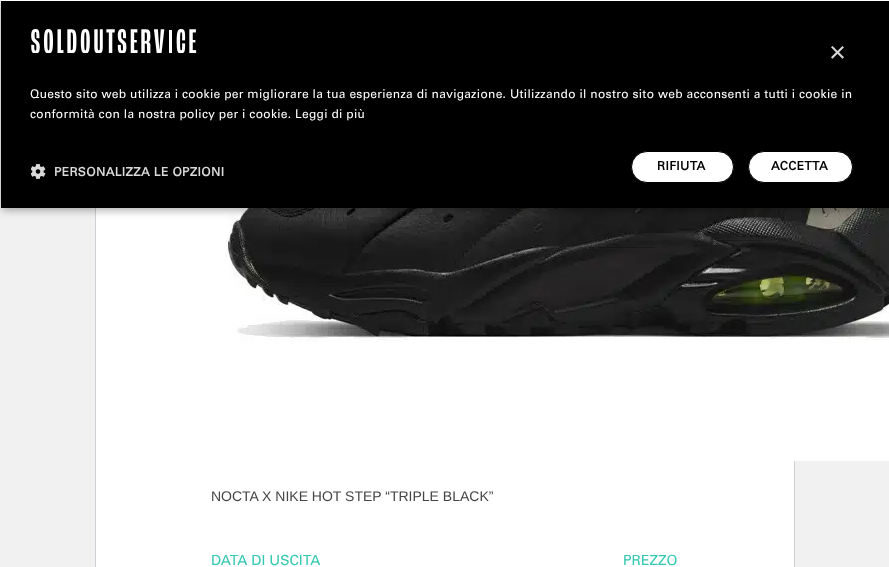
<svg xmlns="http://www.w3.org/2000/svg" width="889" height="567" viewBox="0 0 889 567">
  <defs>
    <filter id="blur1" x="-50%" y="-200%" width="200%" height="500%"><feGaussianBlur stdDeviation="4"/></filter>
  </defs>
  <rect width="100%" height="100%" fill="#f1f1f1"/>
  <rect x="96" y="208" width="698" height="359" fill="#ffffff"/>
  <rect x="95.5" y="-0.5" width="699" height="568" fill="none" stroke="#ccd0d4"/>
  <image x="226" y="208" width="663" height="253" href="img3.png"/>
  <rect x="2" y="2" width="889" height="208" fill="#000000" fill-opacity="0.35" filter="url(#blur1)"/>
  <rect x="1" y="1" width="888" height="207" fill="#000000"/>
  <rect x="1" y="0" width="888" height="1" fill="#ffffff"/>
  <image x="31" y="29" width="166" height="24" href="img1.png"/>
  <text x="829" y="62" font-family="Liberation Sans" font-size="29" fill="#d9d9d9">×</text>
  <text x="30" y="98" font-family="Univers" font-size="12" letter-spacing="0.3" fill="#ffffff">Questo sito web utilizza i cookie per migliorare la tua esperienza di navigazione. Utilizzando il nostro sito web acconsenti a tutti i cookie in</text>
  <text x="30" y="118" font-family="Univers" font-size="12" letter-spacing="0.3" fill="#ffffff">conformità con la nostra policy per i cookie. Leggi di più</text>
  <rect x="631.5" y="151.5" width="102" height="31" rx="15.5" fill="#ffffff" stroke="#000000"/>
  <text x="657" y="170" font-family="Univers" font-size="12" font-weight="bold" letter-spacing="0.4" fill="#000000">RIFIUTA</text>
  <rect x="748.5" y="151.5" width="104" height="31" rx="15.5" fill="#ffffff" stroke="#000000"/>
  <text x="771" y="170" font-family="Univers" font-size="12" font-weight="bold" letter-spacing="0.4" fill="#000000">ACCETTA</text>
  <image x="31" y="164" width="15" height="15" href="img2.png"/>
  <text x="54" y="176" font-family="Univers" font-size="12" font-weight="bold" letter-spacing="0.4" fill="#d9d9d9">PERSONALIZZA LE OPZIONI</text>
  <text x="211" y="501" font-family="Liberation Sans" font-size="14" fill="#444444">NOCTA X NIKE HOT STEP “TRIPLE BLACK”</text>
  <text x="211" y="565" font-family="Univers" font-size="14" fill="#35c8b2">DATA DI USCITA</text>
  <text x="623" y="565" font-family="Univers" font-size="14" fill="#35c8b2">PREZZO</text>
</svg>
